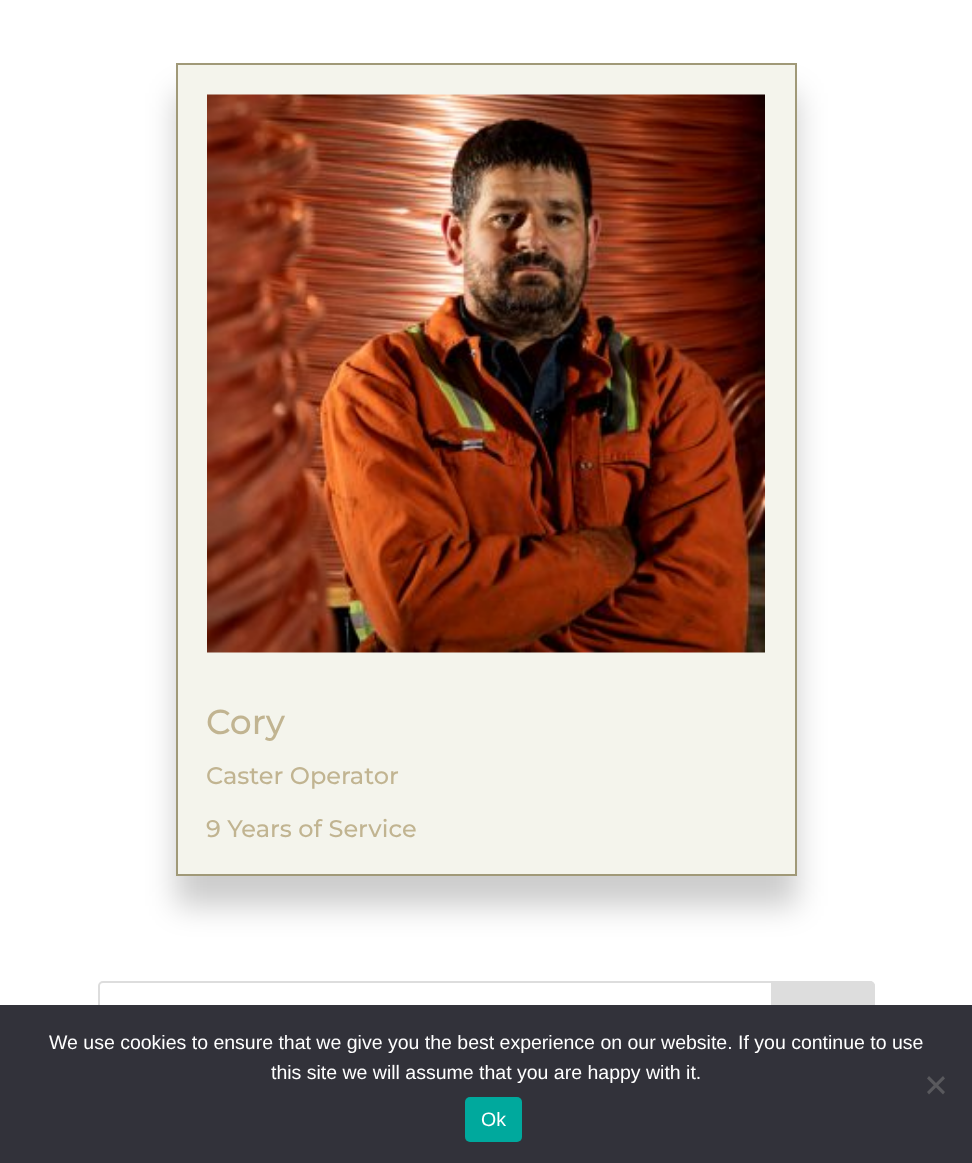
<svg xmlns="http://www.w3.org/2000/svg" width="972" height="1163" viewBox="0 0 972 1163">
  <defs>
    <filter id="blur1" x="-50%" y="-200%" width="200%" height="500%"><feGaussianBlur stdDeviation="15"/></filter>
  </defs>
  <rect width="100%" height="100%" fill="#ffffff"/>
  <rect x="176" y="93" width="621" height="813" fill="#000000" fill-opacity="0.2" filter="url(#blur1)"/>
  <rect x="177" y="64" width="619" height="811" fill="#f4f4ec" stroke="#a09978" stroke-width="2"/>
  <image x="207" y="94" width="558" height="559" href="img1.png"/>
  <text x="206" y="734" font-family="Montserrat" font-size="34.5" font-weight="500" fill="#c1b491">Cory</text>
  <text x="206" y="784" font-family="Montserrat" font-size="24" font-weight="500" fill="#c1b491">Caster Operator</text>
  <text x="206" y="837" font-family="Montserrat" font-size="24" font-weight="500" fill="#c1b491">9 Years of Service</text>
  <rect x="99" y="982" width="775" height="58" rx="4" fill="none" stroke="#dddddd" stroke-width="2"/>
  <path d="M772 982H870C872 982 874 984 874 986V1036C874 1038 872 1040 870 1040H772Z" fill="#dddddd" stroke="#dddddd" stroke-width="2"/>
  <rect x="0" y="1005" width="972" height="158" fill="#32323a"/>
  <text x="49" y="1049" font-family="Liberation Sans" font-size="19.5" fill="#ffffff">We use cookies to ensure that we give you the best experience on our website. If you continue to use</text>
  <text x="271" y="1079" font-family="Liberation Sans" font-size="19.5" fill="#ffffff">this site we will assume that you are happy with it.</text>
  <path d="M943 1076L945 1078.5L929 1094.5L927 1092Z" fill="#59595d"/>
  <path d="M927 1078.5L929 1076L945 1092L943 1094.5Z" fill="#59595d"/>
  <rect x="465" y="1097" width="57" height="45" rx="5" fill="#00a99d"/>
  <text x="481" y="1126" font-family="Liberation Sans" font-size="19.5" fill="#ffffff">Ok</text>
</svg>
